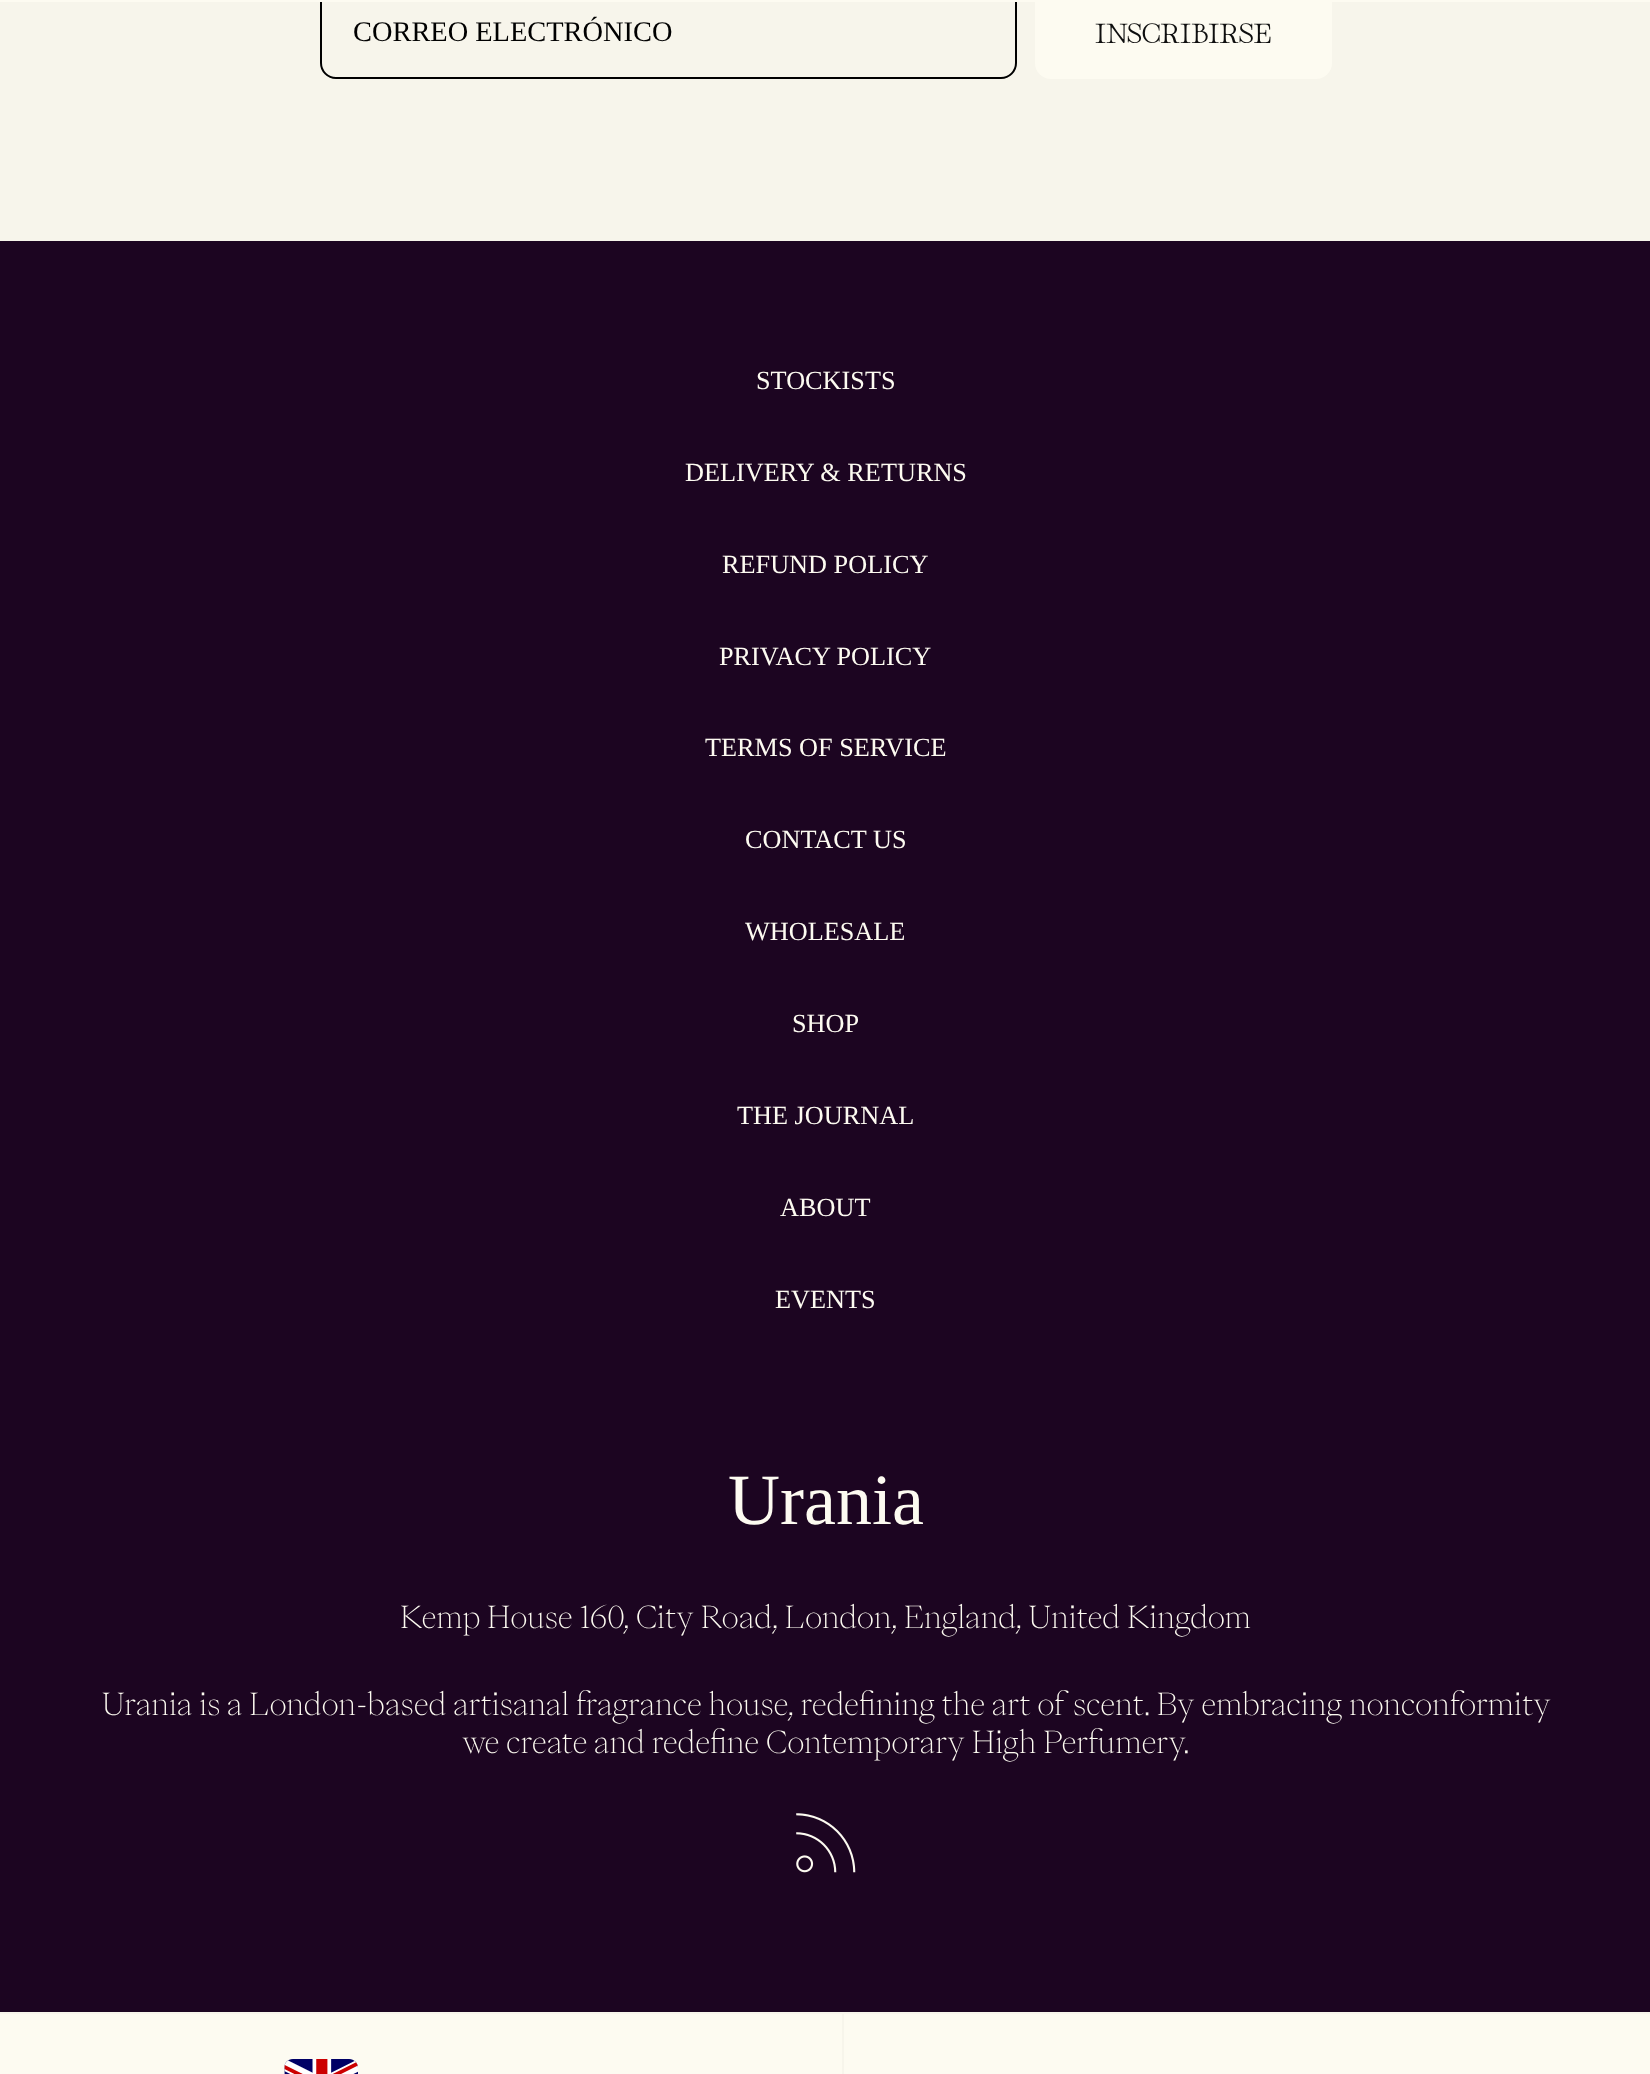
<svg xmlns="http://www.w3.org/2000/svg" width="1650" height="2074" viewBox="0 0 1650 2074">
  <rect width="100%" height="100%" fill="#fdfbf1"/>
  <rect x="0" y="2" width="1650" height="239" fill="#f7f5eb"/>
  <rect x="321" y="-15" width="695" height="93" rx="15" fill="none" stroke="#000000" stroke-width="2"/>
  <rect x="320" y="0" width="697" height="2" fill="#fdfbf1"/>
  <text x="353" y="41" font-family="Liberation Serif" font-size="28.4" fill="#000000">CORREO ELECTRÓNICO</text>
  <rect x="1035" y="-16" width="297" height="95" rx="16" fill="#fdfbf1"/>
  <text x="1095" y="43" font-family="Hina Mincho" font-size="28.4" fill="#0e0e0e">INSCRIBIRSE</text>
  <rect x="0" y="241" width="1650" height="1771" fill="#1c0521"/>
  <text x="756" y="389" font-family="Liberation Serif" font-size="26.25" fill="#fdfbf1">STOCKISTS</text>
  <text x="685" y="481" font-family="Liberation Serif" font-size="26.25" fill="#fdfbf1">DELIVERY &amp; RETURNS</text>
  <text x="722" y="573" font-family="Liberation Serif" font-size="26.25" fill="#fdfbf1">REFUND POLICY</text>
  <text x="719" y="665" font-family="Liberation Serif" font-size="26.25" fill="#fdfbf1">PRIVACY POLICY</text>
  <text x="705" y="756" font-family="Liberation Serif" font-size="26.25" fill="#fdfbf1">TERMS OF SERVICE</text>
  <text x="745" y="848" font-family="Liberation Serif" font-size="26.25" fill="#fdfbf1">CONTACT US</text>
  <text x="745" y="940" font-family="Liberation Serif" font-size="26.25" fill="#fdfbf1">WHOLESALE</text>
  <text x="792" y="1032" font-family="Liberation Serif" font-size="26.25" fill="#fdfbf1">SHOP</text>
  <text x="737" y="1124" font-family="Liberation Serif" font-size="26.25" fill="#fdfbf1">THE JOURNAL</text>
  <text x="780" y="1216" font-family="Liberation Serif" font-size="26.25" fill="#fdfbf1">ABOUT</text>
  <text x="775" y="1308" font-family="Liberation Serif" font-size="26.25" fill="#fdfbf1">EVENTS</text>
  <text x="728" y="1524" font-family="Liberation Serif" font-size="72" fill="#fdfbf1">Urania</text>
  <text x="400" y="1628" font-family="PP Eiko" font-size="30.4" font-weight="100" fill="#fdfbf1">Kemp House 160, City Road, London, England, United Kingdom</text>
  <text x="102" y="1715" font-family="PP Eiko" font-size="30.4" font-weight="100" fill="#fdfbf1">Urania is a London-based artisanal fragrance house, redefining the art of scent. By embracing nonconformity</text>
  <text x="462" y="1753" font-family="PP Eiko" font-size="30.4" font-weight="100" fill="#fdfbf1">we create and redefine Contemporary High Perfumery.</text>
  <image x="796" y="1813" width="60" height="60" href="img1.png"/>
  <rect x="0" y="2012" width="1650" height="2" fill="#f7f5eb"/>
  <rect x="842" y="2014" width="2" height="60" fill="#f7f5eb"/>
  <image x="284" y="2059" width="74" height="15" href="img2.png"/>
</svg>
